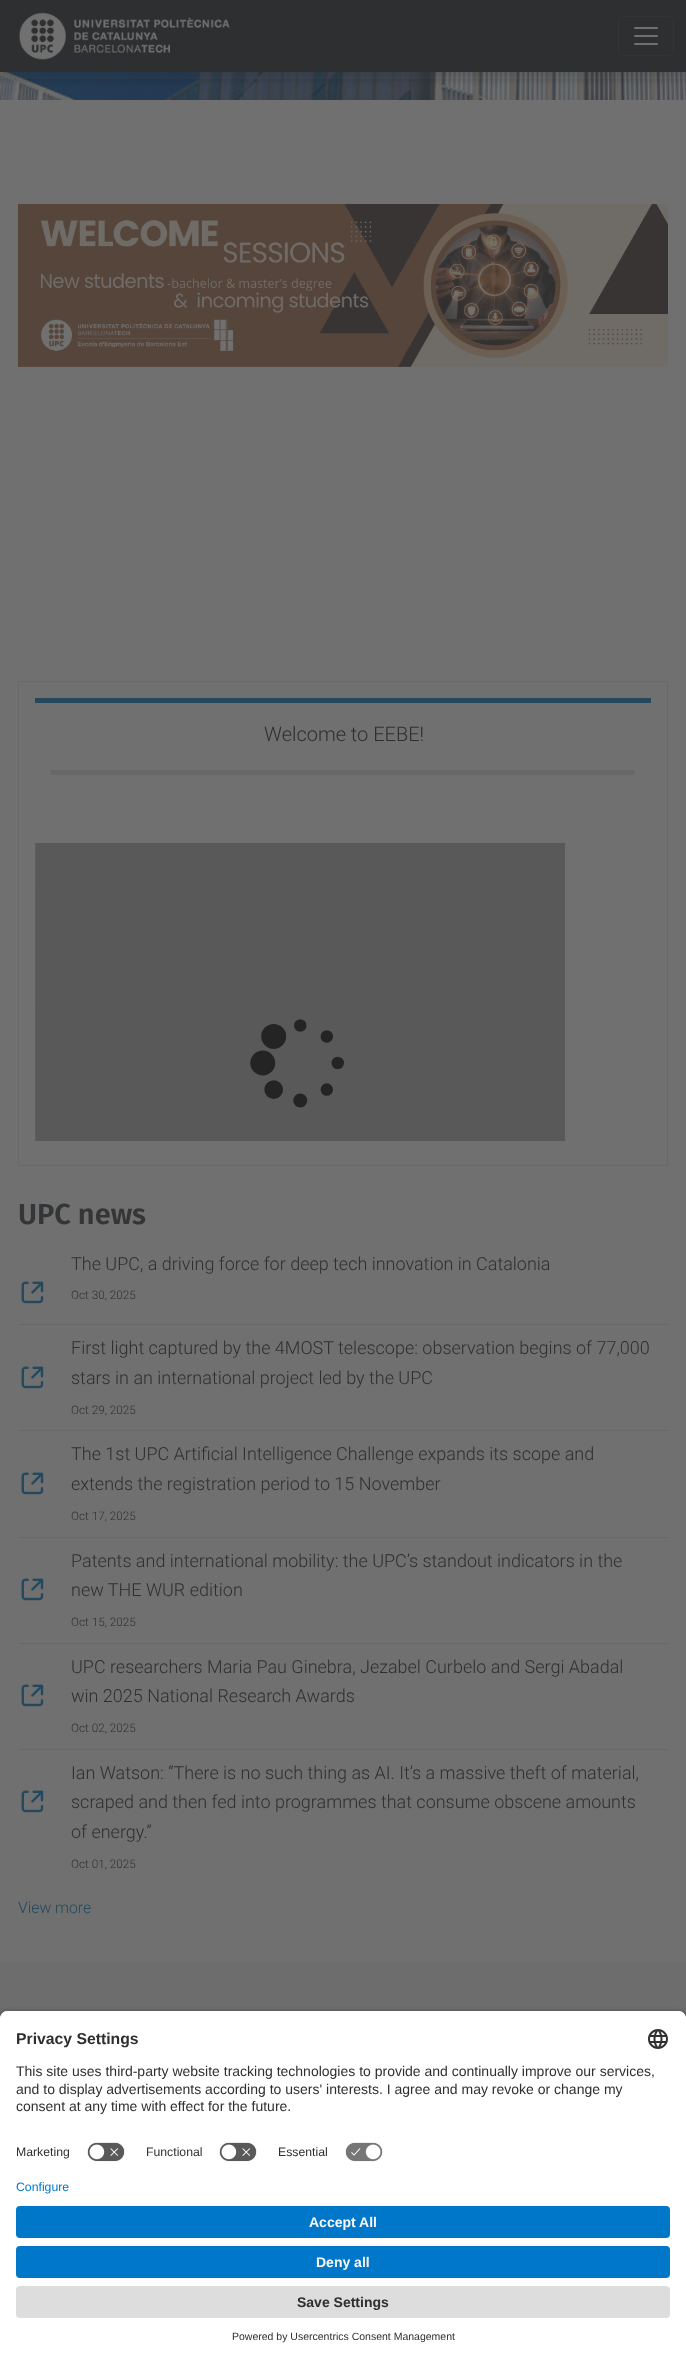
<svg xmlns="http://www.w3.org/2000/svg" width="686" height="2358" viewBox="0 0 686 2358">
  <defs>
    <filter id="blur1" x="-50%" y="-200%" width="200%" height="500%"><feGaussianBlur stdDeviation="4"/></filter>
    <filter id="blur2" x="-50%" y="-200%" width="200%" height="500%"><feGaussianBlur stdDeviation="3.5"/></filter>
  </defs>
  <rect width="100%" height="100%" fill="#707070"/>
  <image x="0" y="72" width="686" height="28" href="img3.png"/>
  <rect x="0" y="7" width="686" height="72" fill="#242424" fill-opacity="0.2" filter="url(#blur1)"/>
  <rect x="0" y="0" width="686" height="72" fill="#2e2f30"/>
  <image x="19" y="12" width="211" height="48" href="img1.png"/>
  <rect x="618.5" y="16.5" width="55" height="39" rx="5.5" fill="none" stroke="#343536"/>
  <image x="634" y="27" width="24" height="18" href="img2.png"/>
  <image x="18" y="204" width="650" height="163" href="img4.png"/>
  <rect x="18.5" y="681.5" width="649" height="484" fill="none" stroke="#666869"/>
  <rect x="35" y="698" width="616" height="5" fill="#24495e"/>
  <text x="264" y="741" font-family="Roboto" font-size="20" font-weight="300" fill="#2e2f30">Welcome to EEBE!</text>
  <rect x="51" y="770" width="584" height="5" fill="#666869"/>
  <image x="35" y="843" width="530" height="298" href="img5.png"/>
  <text x="18" y="1224" font-family="Fira Sans" font-size="29" font-weight="600" fill="#333537">UPC news</text>
  <rect x="18" y="1324" width="650" height="1" fill="#666869"/>
  <image x="21" y="1281" width="23" height="23" href="img6.png"/>
  <text x="71" y="1270" font-family="Roboto" font-size="18" font-weight="300" fill="#2e2f30">The UPC, a driving force for deep tech innovation in Catalonia</text>
  <text x="71" y="1299" font-family="Roboto" font-size="11.75" font-weight="300" fill="#2e2f30">Oct 30, 2025</text>
  <rect x="18" y="1430" width="650" height="1" fill="#666869"/>
  <image x="21" y="1366" width="23" height="23" href="img6.png"/>
  <text x="71" y="1354" font-family="Roboto" font-size="18" font-weight="300" fill="#2e2f30">First light captured by the 4MOST telescope: observation begins of 77,000</text>
  <text x="71" y="1384" font-family="Roboto" font-size="18" font-weight="300" fill="#2e2f30">stars in an international project led by the UPC</text>
  <text x="71" y="1414" font-family="Roboto" font-size="11.75" font-weight="300" fill="#2e2f30">Oct 29, 2025</text>
  <rect x="18" y="1537" width="650" height="1" fill="#666869"/>
  <image x="21" y="1472" width="23" height="23" href="img6.png"/>
  <text x="71" y="1460" font-family="Roboto" font-size="18" font-weight="300" fill="#2e2f30">The 1st UPC Artificial Intelligence Challenge expands its scope and</text>
  <text x="71" y="1490" font-family="Roboto" font-size="18" font-weight="300" fill="#2e2f30">extends the registration period to 15 November</text>
  <text x="71" y="1520" font-family="Roboto" font-size="11.75" font-weight="300" fill="#2e2f30">Oct 17, 2025</text>
  <rect x="18" y="1643" width="650" height="1" fill="#666869"/>
  <image x="21" y="1578" width="23" height="23" href="img6.png"/>
  <text x="71" y="1567" font-family="Roboto" font-size="18" font-weight="300" fill="#2e2f30">Patents and international mobility: the UPC’s standout indicators in the</text>
  <text x="71" y="1596" font-family="Roboto" font-size="18" font-weight="300" fill="#2e2f30">new THE WUR edition</text>
  <text x="71" y="1626" font-family="Roboto" font-size="11.75" font-weight="300" fill="#2e2f30">Oct 15, 2025</text>
  <rect x="18" y="1749" width="650" height="1" fill="#666869"/>
  <image x="21" y="1684" width="23" height="23" href="img6.png"/>
  <text x="71" y="1673" font-family="Roboto" font-size="18" font-weight="300" fill="#2e2f30">UPC researchers Maria Pau Ginebra, Jezabel Curbelo and Sergi Abadal</text>
  <text x="71" y="1702" font-family="Roboto" font-size="18" font-weight="300" fill="#2e2f30">win 2025 National Research Awards</text>
  <text x="71" y="1732" font-family="Roboto" font-size="11.75" font-weight="300" fill="#2e2f30">Oct 02, 2025</text>
  <image x="21" y="1790" width="23" height="23" href="img6.png"/>
  <text x="71" y="1779" font-family="Roboto" font-size="18" font-weight="300" fill="#2e2f30">Ian Watson: “There is no such thing as AI. It’s a massive theft of material,</text>
  <text x="71" y="1808" font-family="Roboto" font-size="18" font-weight="300" fill="#2e2f30">scraped and then fed into programmes that consume obscene amounts</text>
  <text x="71" y="1838" font-family="Roboto" font-size="18" font-weight="300" fill="#2e2f30">of energy.”</text>
  <text x="71" y="1868" font-family="Roboto" font-size="11.75" font-weight="300" fill="#2e2f30">Oct 01, 2025</text>
  <text x="18" y="1913" font-family="Roboto" font-size="15.75" font-weight="300" fill="#24495e">View more</text>
  <rect x="0" y="1962" width="686" height="57" fill="#6d6d6d"/>
  <rect x="0" y="2014" width="686" height="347" rx="8" fill="#000000" fill-opacity="0.8" filter="url(#blur2)"/>
  <path d="M8 2011H678C682.5 2011 686 2014.5 686 2019V2180H0V2019C0 2014.5 3.5 2011 8 2011Z" fill="#ffffff"/>
  <path d="M8 2011H678C682.5 2011 686 2014.5 686 2019V2136H0V2019C0 2014.5 3.5 2011 8 2011Z" fill="#ffffff"/>
  <text x="16" y="2044" font-family="Liberation Sans" font-size="15.75" font-weight="bold" fill="#2e2f30">Privacy Settings</text>
  <image x="648" y="2029" width="20" height="20" href="img7.png"/>
  <text x="16" y="2076" font-family="Liberation Sans" font-size="14" fill="#2e2f30">This site uses third-party website tracking technologies to provide and continually improve our services,</text>
  <text x="16" y="2094" font-family="Liberation Sans" font-size="14" fill="#2e2f30">and to display advertisements according to users' interests. I agree and may revoke or change my</text>
  <text x="16" y="2111" font-family="Liberation Sans" font-size="14" fill="#2e2f30">consent at any time with effect for the future.</text>
  <text x="16" y="2156" font-family="Liberation Sans" font-size="12.25" fill="#2e2f30">Marketing</text>
  <image x="87" y="2142" width="38" height="20" href="img8.png"/>
  <text x="146" y="2156" font-family="Liberation Sans" font-size="12.25" fill="#2e2f30">Functional</text>
  <image x="219" y="2142" width="38" height="20" href="img8.png"/>
  <text x="278" y="2156" font-family="Liberation Sans" font-size="12.25" fill="#2e2f30">Essential</text>
  <image x="345" y="2142" width="38" height="20" href="img9.png"/>
  <rect x="0" y="2180" width="686" height="178" fill="#ffffff"/>
  <text x="16" y="2191" font-family="Liberation Sans" font-size="12.25" fill="#0077c8">Configure</text>
  <rect x="16" y="2206" width="654" height="32" rx="4" fill="#0077c8"/>
  <text x="309" y="2227" font-family="Liberation Sans" font-size="14" font-weight="bold" fill="#fafafa">Accept All</text>
  <rect x="16" y="2246" width="654" height="32" rx="4" fill="#0077c8"/>
  <text x="316" y="2267" font-family="Liberation Sans" font-size="14" font-weight="bold" fill="#fafafa">Deny all</text>
  <rect x="16" y="2286" width="654" height="32" rx="4" fill="#dddddd"/>
  <text x="297" y="2307" font-family="Liberation Sans" font-size="14" font-weight="bold" fill="#2e2f30">Save Settings</text>
  <text x="232" y="2340" font-family="Liberation Sans" font-size="10.5" fill="#2e2f30">Powered by Usercentrics Consent Management</text>
</svg>
